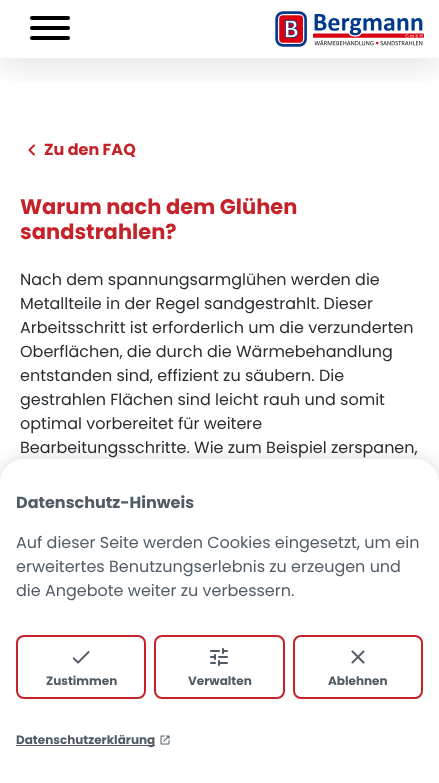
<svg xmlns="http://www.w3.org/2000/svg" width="439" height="783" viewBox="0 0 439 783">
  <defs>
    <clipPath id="clip1"><rect x="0" y="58" width="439" height="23"/></clipPath>
    <filter id="blur1" x="-50%" y="-200%" width="200%" height="500%"><feGaussianBlur stdDeviation="15"/></filter>
    <filter id="blur2" x="-50%" y="-200%" width="200%" height="500%"><feGaussianBlur stdDeviation="8"/></filter>
  </defs>
  <rect width="100%" height="100%" fill="#ffffff"/>
  <g clip-path="url(#clip1)">
    <rect x="0" y="10" width="439" height="58" fill="#000000" fill-opacity="0.1" filter="url(#blur1)"/>
  </g>
  <rect x="30" y="26" width="40" height="4" rx="2" fill="#000000"/>
  <rect x="30" y="16" width="40" height="4" rx="2" fill="#000000"/>
  <rect x="30" y="36" width="40" height="4" rx="2" fill="#000000"/>
  <image x="274" y="11" width="150" height="36" href="img1.png"/>
  <image x="28" y="144" width="7" height="12" href="img2.png"/>
  <text x="44" y="155" font-family="Poppins" font-size="16" font-weight="bold" fill="#c5232a">Zu den FAQ</text>
  <text x="20" y="214" font-family="Poppins" font-size="21" font-weight="bold" fill="#c5232a">Warum nach dem Glühen</text>
  <text x="20" y="239" font-family="Poppins" font-size="21" font-weight="bold" fill="#c5232a">sandstrahlen?</text>
  <text x="20" y="285" font-family="Poppins" font-size="16" fill="#292e33">Nach dem spannungsarmglühen werden die</text>
  <text x="20" y="309" font-family="Poppins" font-size="16" fill="#292e33">Metallteile in der Regel sandgestrahlt. Dieser</text>
  <text x="20" y="333" font-family="Poppins" font-size="16" fill="#292e33">Arbeitsschritt ist erforderlich um die verzunderten</text>
  <text x="20" y="357" font-family="Poppins" font-size="16" fill="#292e33">Oberflächen, die durch die Wärmebehandlung</text>
  <text x="20" y="381" font-family="Poppins" font-size="16" fill="#292e33">entstanden sind, effizient zu säubern. Die</text>
  <text x="20" y="405" font-family="Poppins" font-size="16" fill="#292e33">gestrahlen Flächen sind leicht rauh und somit</text>
  <text x="20" y="429" font-family="Poppins" font-size="16" fill="#292e33">optimal vorbereitet für weitere</text>
  <text x="20" y="453" font-family="Poppins" font-size="16" fill="#292e33">Bearbeitungsschritte. Wie zum Beispiel zerspanen,</text>
  <rect x="0" y="459" width="439" height="324" rx="24" fill="#000000" fill-opacity="0.16" filter="url(#blur2)"/>
  <path d="M24 459H415C428.5 459 439 469.5 439 483V783H0V483C0 469.5 10.5 459 24 459Z" fill="#ffffff"/>
  <text x="16" y="508" font-family="Poppins" font-size="16" font-weight="bold" fill="#525c66">Datenschutz-Hinweis</text>
  <text x="16" y="548" font-family="Poppins" font-size="16" fill="#525c66">Auf dieser Seite werden Cookies eingesetzt, um ein</text>
  <text x="16" y="572" font-family="Poppins" font-size="16" fill="#525c66">erweitertes Benutzungserlebnis zu erzeugen und</text>
  <text x="16" y="596" font-family="Poppins" font-size="16" fill="#525c66">die Angebote weiter zu verbessern.</text>
  <rect x="17" y="636" width="128" height="62" rx="7" fill="none" stroke="#c5232a" stroke-width="2"/>
  <image x="72" y="651" width="18" height="13" href="img3.png"/>
  <text x="46" y="685" font-family="Poppins" font-size="12" font-weight="bold" fill="#525c66">Zustimmen</text>
  <rect x="155" y="636" width="129" height="62" rx="7" fill="none" stroke="#c5232a" stroke-width="2"/>
  <image x="210" y="648" width="18" height="18" href="img4.png"/>
  <text x="188" y="685" font-family="Poppins" font-size="12" font-weight="bold" fill="#525c66">Verwalten</text>
  <rect x="294" y="636" width="128" height="62" rx="7" fill="none" stroke="#c5232a" stroke-width="2"/>
  <image x="351" y="650" width="14" height="14" href="img5.png"/>
  <text x="328" y="685" font-family="Poppins" font-size="12" font-weight="bold" fill="#525c66">Ablehnen</text>
  <rect x="16" y="745" width="139" height="1" fill="#525c66"/>
  <text x="16" y="744" font-family="Poppins" font-size="12" font-weight="bold" fill="#525c66">Datenschutzerklärung</text>
  <image x="160" y="735" width="10" height="10" href="img6.png"/>
</svg>
